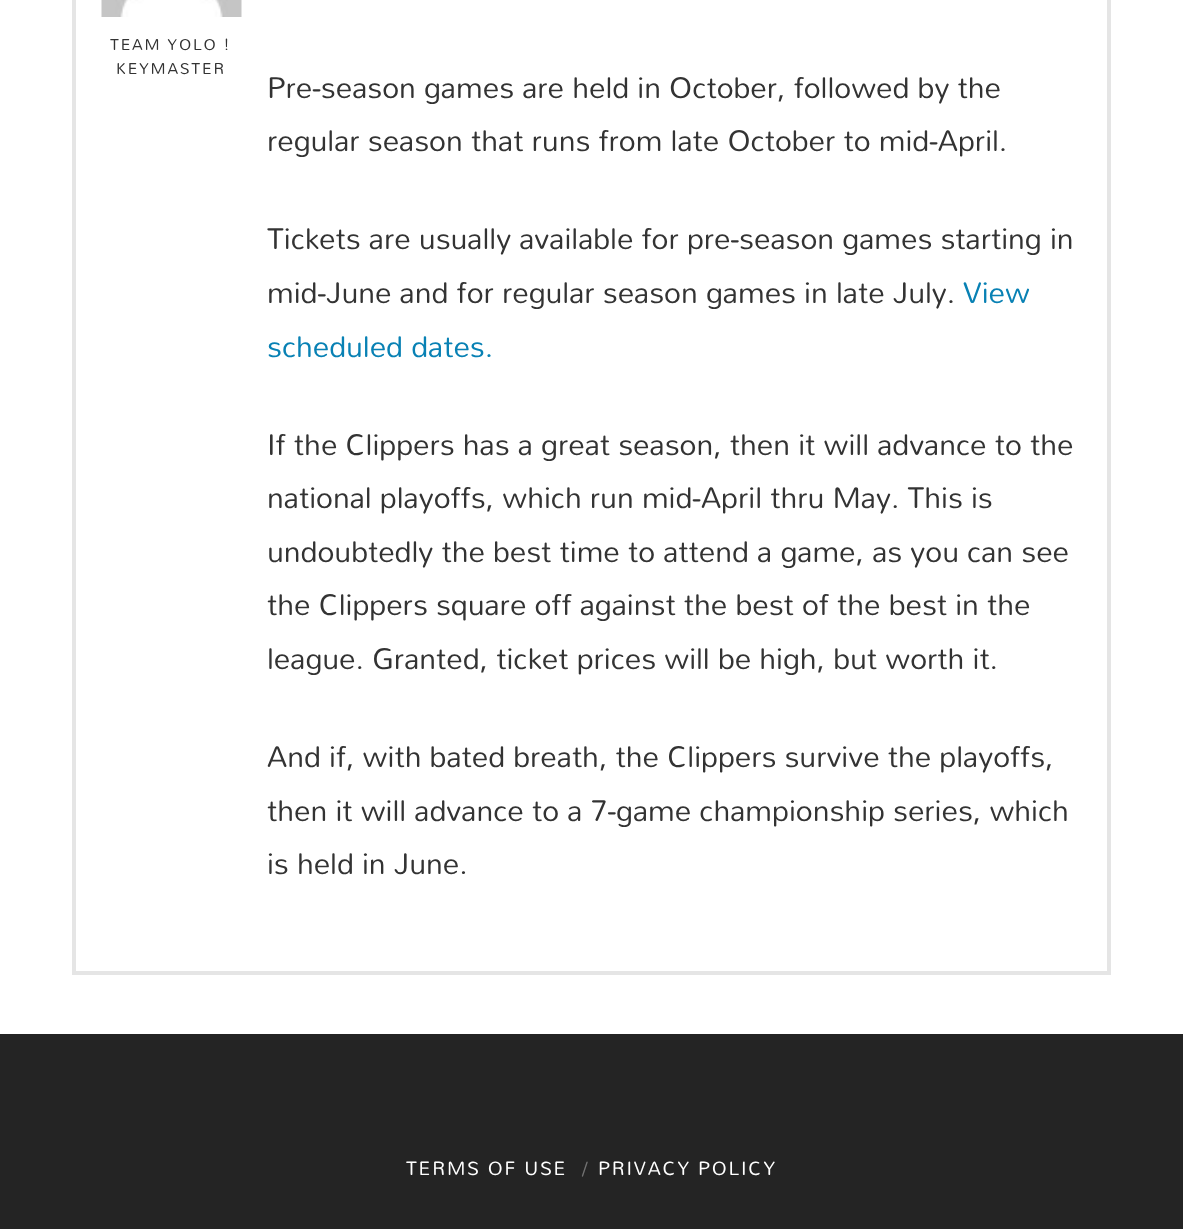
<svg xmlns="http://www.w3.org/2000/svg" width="1183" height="1229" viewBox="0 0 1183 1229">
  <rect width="100%" height="100%" fill="#ffffff"/>
  <rect x="74" y="-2" width="1035" height="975" fill="none" stroke="#e5e5e5" stroke-width="4"/>
  <image x="101" y="0" width="141" height="17" href="img1.png"/>
  <text x="110" y="50" font-family="Mandali" font-size="15.75" letter-spacing="1.75" fill="#333333">TEAM YOLO !</text>
  <text x="116" y="74" font-family="Mandali" font-size="15.75" letter-spacing="1.75" fill="#333333">KEYMASTER</text>
  <text x="267" y="98" font-family="Mandali" font-size="29.75" fill="#333333">Pre-season games are held in October, followed by the</text>
  <text x="267" y="151" font-family="Mandali" font-size="29.75" fill="#333333">regular season that runs from late October to mid-April.</text>
  <text x="267" y="249" font-family="Mandali" font-size="29.75" fill="#333333">Tickets are usually available for pre-season games starting in</text>
  <text x="267" y="303" font-family="Mandali" font-size="29.75" fill="#333333">mid-June and for regular season games in late July.</text>
  <text x="963" y="303" font-family="Mandali" font-size="29.75" fill="#0881b4">View</text>
  <text x="267" y="357" font-family="Mandali" font-size="29.75" fill="#0881b4">scheduled dates.</text>
  <text x="267" y="455" font-family="Mandali" font-size="29.75" fill="#333333">If the Clippers has a great season, then it will advance to the</text>
  <text x="267" y="508" font-family="Mandali" font-size="29.75" fill="#333333">national playoffs, which run mid-April thru May. This is</text>
  <text x="267" y="562" font-family="Mandali" font-size="29.75" fill="#333333">undoubtedly the best time to attend a game, as you can see</text>
  <text x="267" y="615" font-family="Mandali" font-size="29.75" fill="#333333">the Clippers square off against the best of the best in the</text>
  <text x="267" y="669" font-family="Mandali" font-size="29.75" fill="#333333">league. Granted, ticket prices will be high, but worth it.</text>
  <text x="267" y="767" font-family="Mandali" font-size="29.75" fill="#333333">And if, with bated breath, the Clippers survive the playoffs,</text>
  <text x="267" y="821" font-family="Mandali" font-size="29.75" fill="#333333">then it will advance to a 7-game championship series, which</text>
  <text x="267" y="874" font-family="Mandali" font-size="29.75" fill="#333333">is held in June.</text>
  <rect x="0" y="1034" width="1183" height="195" fill="#242424"/>
  <text x="406" y="1175" font-family="Mandali" font-size="19.25" letter-spacing="1.75" fill="#ffffff">TERMS OF USE</text>
  <text x="582" y="1175" font-family="Mandali" font-size="19.25" fill="#717171">/</text>
  <text x="598" y="1175" font-family="Mandali" font-size="19.25" letter-spacing="1.75" fill="#ffffff">PRIVACY POLICY</text>
</svg>
